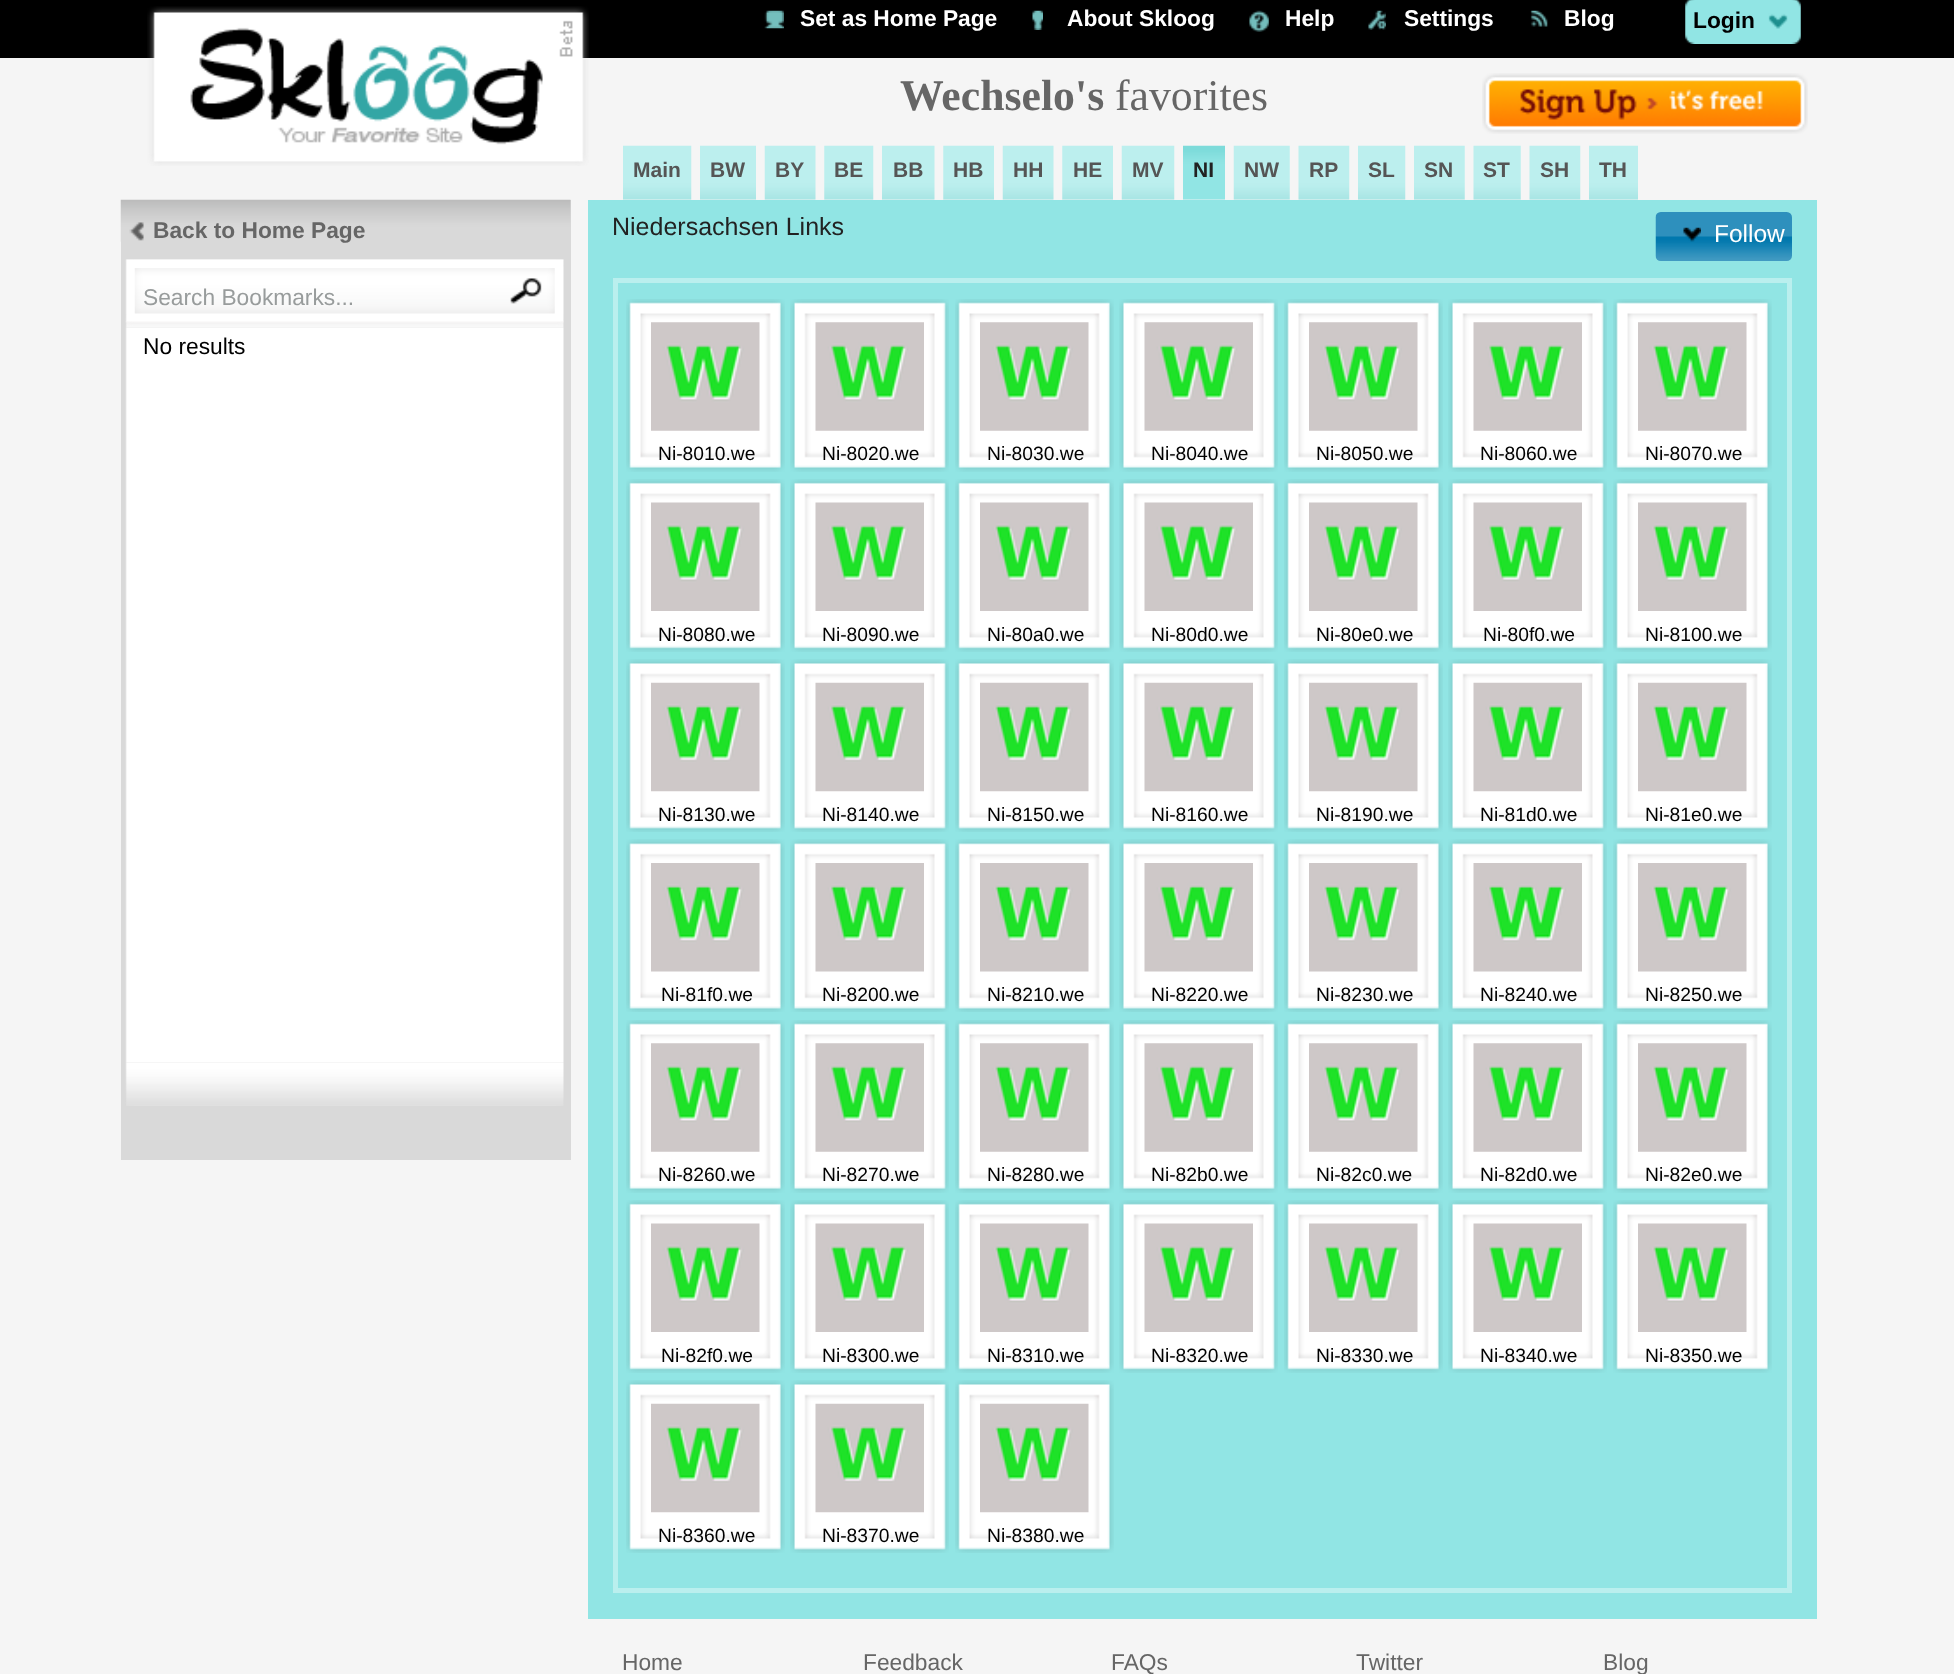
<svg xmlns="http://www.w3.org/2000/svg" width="1954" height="1674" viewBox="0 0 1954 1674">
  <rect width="100%" height="100%" fill="#f5f5f5"/>
  <rect x="0" y="0" width="1954" height="58" fill="#000000"/>
  <image x="147" y="6" width="442" height="160" href="img1.png"/>
  <image x="190" y="20" width="383" height="125" href="img2.png"/>
  <image x="764" y="10" width="20" height="19" href="img3.png"/>
  <text x="800" y="26" font-family="Liberation Sans" font-size="22.75" font-weight="bold" fill="#ffffff">Set as Home Page</text>
  <image x="1032" y="10" width="11" height="20" href="img4.png"/>
  <text x="1067" y="26" font-family="Liberation Sans" font-size="22.75" font-weight="bold" fill="#ffffff">About Skloog</text>
  <image x="1249" y="10" width="20" height="22" href="img5.png"/>
  <text x="1285" y="26" font-family="Liberation Sans" font-size="22.75" font-weight="bold" fill="#ffffff">Help</text>
  <image x="1368" y="10" width="18" height="20" href="img6.png"/>
  <text x="1404" y="26" font-family="Liberation Sans" font-size="22.75" font-weight="bold" fill="#ffffff">Settings</text>
  <image x="1530" y="10" width="18" height="17" href="img7.png"/>
  <text x="1564" y="26" font-family="Liberation Sans" font-size="22.75" font-weight="bold" fill="#ffffff">Blog</text>
  <image x="1685" y="0" width="116" height="44" href="img8.png"/>
  <text x="1693" y="28" font-family="Liberation Sans" font-size="22.75" font-weight="bold" fill="#000000">Login</text>
  <text x="900" y="110" font-family="Liberation Serif" font-size="43.75" font-weight="bold" fill="#666666">Wechselo's</text>
  <text x="1115" y="110" font-family="Liberation Serif" font-size="43.75" fill="#666666">favorites</text>
  <image x="1482" y="73" width="326" height="61" href="img9.png"/>
  <rect x="121" y="200" width="450" height="960" fill="#d9d9d9"/>
  <image x="120" y="199" width="451" height="43" href="img10.png"/>
  <image x="129" y="222" width="15" height="19" href="img11.png"/>
  <text x="153" y="238" font-family="Liberation Sans" font-size="22.75" font-weight="bold" fill="#666666">Back to Home Page</text>
  <image x="125" y="259" width="439" height="64" href="img12.png"/>
  <image x="134" y="268" width="363" height="46" href="img13.png"/>
  <text x="143" y="305" font-family="Liberation Sans" font-size="22.75" fill="#989c9c">Search Bookmarks...</text>
  <image x="497" y="268" width="58" height="46" href="img14.png"/>
  <image x="125" y="321" width="439" height="7" href="img15.png"/>
  <image x="125" y="327" width="439" height="736" href="img16.png"/>
  <text x="143" y="354" font-family="Liberation Sans" font-size="22.75" fill="#000000">No results</text>
  <image x="125" y="1062" width="439" height="44" href="img17.png"/>
  <image x="623" y="145" width="69" height="55" href="img18.png"/>
  <text x="633" y="177" font-family="Liberation Sans" font-size="21" font-weight="bold" fill="#555555">Main</text>
  <image x="700" y="145" width="56" height="55" href="img19.png"/>
  <text x="710" y="177" font-family="Liberation Sans" font-size="21" font-weight="bold" fill="#555555">BW</text>
  <image x="764" y="145" width="52" height="55" href="img20.png"/>
  <text x="775" y="177" font-family="Liberation Sans" font-size="21" font-weight="bold" fill="#555555">BY</text>
  <image x="824" y="145" width="50" height="55" href="img21.png"/>
  <text x="834" y="177" font-family="Liberation Sans" font-size="21" font-weight="bold" fill="#555555">BE</text>
  <image x="882" y="145" width="53" height="55" href="img22.png"/>
  <text x="893" y="177" font-family="Liberation Sans" font-size="21" font-weight="bold" fill="#555555">BB</text>
  <image x="943" y="145" width="51" height="55" href="img23.png"/>
  <text x="953" y="177" font-family="Liberation Sans" font-size="21" font-weight="bold" fill="#555555">HB</text>
  <image x="1002" y="145" width="52" height="55" href="img20.png"/>
  <text x="1013" y="177" font-family="Liberation Sans" font-size="21" font-weight="bold" fill="#555555">HH</text>
  <image x="1062" y="145" width="51" height="55" href="img23.png"/>
  <text x="1073" y="177" font-family="Liberation Sans" font-size="21" font-weight="bold" fill="#555555">HE</text>
  <image x="1121" y="145" width="54" height="55" href="img24.png"/>
  <text x="1132" y="177" font-family="Liberation Sans" font-size="21" font-weight="bold" fill="#555555">MV</text>
  <image x="1183" y="145" width="42" height="55" href="img25.png"/>
  <text x="1193" y="177" font-family="Liberation Sans" font-size="21" font-weight="bold" fill="#222222">NI</text>
  <image x="1233" y="145" width="57" height="55" href="img26.png"/>
  <text x="1244" y="177" font-family="Liberation Sans" font-size="21" font-weight="bold" fill="#555555">NW</text>
  <image x="1298" y="145" width="52" height="55" href="img27.png"/>
  <text x="1309" y="177" font-family="Liberation Sans" font-size="21" font-weight="bold" fill="#555555">RP</text>
  <image x="1358" y="145" width="48" height="55" href="img28.png"/>
  <text x="1368" y="177" font-family="Liberation Sans" font-size="21" font-weight="bold" fill="#555555">SL</text>
  <image x="1414" y="145" width="51" height="55" href="img29.png"/>
  <text x="1424" y="177" font-family="Liberation Sans" font-size="21" font-weight="bold" fill="#555555">SN</text>
  <image x="1473" y="145" width="48" height="55" href="img30.png"/>
  <text x="1483" y="177" font-family="Liberation Sans" font-size="21" font-weight="bold" fill="#555555">ST</text>
  <image x="1529" y="145" width="52" height="55" href="img27.png"/>
  <text x="1540" y="177" font-family="Liberation Sans" font-size="21" font-weight="bold" fill="#555555">SH</text>
  <image x="1589" y="145" width="49" height="55" href="img31.png"/>
  <text x="1599" y="177" font-family="Liberation Sans" font-size="21" font-weight="bold" fill="#555555">TH</text>
  <rect x="588" y="200" width="1229" height="1419" fill="#91e5e4"/>
  <text x="612" y="235" font-family="Liberation Sans" font-size="25" fill="#222222">Niedersachsen Links</text>
  <image x="1655" y="212" width="137" height="49" href="img32.png"/>
  <image x="1683" y="227" width="18" height="15" href="img33.png"/>
  <text x="1714" y="242" font-family="Liberation Sans" font-size="24.5" fill="#ffffff">Follow</text>
  <rect x="615.5" y="280.5" width="1174" height="1310" fill="none" stroke="#baefee" stroke-width="5"/>
  <image x="626" y="299" width="159" height="173" href="img34.png"/>
  <image x="651" y="322" width="109" height="109" href="img35.png"/>
  <text x="658" y="460" font-family="Liberation Sans" font-size="19.25" fill="#000000">Ni-8010.we</text>
  <image x="790" y="299" width="159" height="173" href="img36.png"/>
  <image x="815" y="322" width="109" height="109" href="img37.png"/>
  <text x="822" y="460" font-family="Liberation Sans" font-size="19.25" fill="#000000">Ni-8020.we</text>
  <image x="955" y="299" width="159" height="173" href="img34.png"/>
  <image x="980" y="322" width="109" height="109" href="img38.png"/>
  <text x="987" y="460" font-family="Liberation Sans" font-size="19.25" fill="#000000">Ni-8030.we</text>
  <image x="1119" y="299" width="159" height="173" href="img39.png"/>
  <image x="1144" y="322" width="109" height="109" href="img40.png"/>
  <text x="1151" y="460" font-family="Liberation Sans" font-size="19.25" fill="#000000">Ni-8040.we</text>
  <image x="1284" y="299" width="159" height="173" href="img41.png"/>
  <image x="1309" y="322" width="109" height="109" href="img42.png"/>
  <text x="1316" y="460" font-family="Liberation Sans" font-size="19.25" fill="#000000">Ni-8050.we</text>
  <image x="1448" y="299" width="159" height="173" href="img43.png"/>
  <image x="1473" y="322" width="109" height="109" href="img44.png"/>
  <text x="1480" y="460" font-family="Liberation Sans" font-size="19.25" fill="#000000">Ni-8060.we</text>
  <image x="1613" y="299" width="159" height="173" href="img34.png"/>
  <image x="1638" y="322" width="109" height="109" href="img35.png"/>
  <text x="1645" y="460" font-family="Liberation Sans" font-size="19.25" fill="#000000">Ni-8070.we</text>
  <image x="626" y="479" width="159" height="173" href="img45.png"/>
  <image x="651" y="502" width="109" height="109" href="img46.png"/>
  <text x="658" y="641" font-family="Liberation Sans" font-size="19.25" fill="#000000">Ni-8080.we</text>
  <image x="790" y="479" width="159" height="173" href="img47.png"/>
  <image x="815" y="502" width="109" height="109" href="img48.png"/>
  <text x="822" y="641" font-family="Liberation Sans" font-size="19.25" fill="#000000">Ni-8090.we</text>
  <image x="955" y="479" width="159" height="173" href="img45.png"/>
  <image x="980" y="502" width="109" height="109" href="img49.png"/>
  <text x="987" y="641" font-family="Liberation Sans" font-size="19.25" fill="#000000">Ni-80a0.we</text>
  <image x="1119" y="479" width="159" height="173" href="img50.png"/>
  <image x="1144" y="502" width="109" height="109" href="img51.png"/>
  <text x="1151" y="641" font-family="Liberation Sans" font-size="19.25" fill="#000000">Ni-80d0.we</text>
  <image x="1284" y="479" width="159" height="173" href="img52.png"/>
  <image x="1309" y="502" width="109" height="109" href="img53.png"/>
  <text x="1316" y="641" font-family="Liberation Sans" font-size="19.25" fill="#000000">Ni-80e0.we</text>
  <image x="1448" y="479" width="159" height="173" href="img54.png"/>
  <image x="1473" y="502" width="109" height="109" href="img55.png"/>
  <text x="1483" y="641" font-family="Liberation Sans" font-size="19.25" fill="#000000">Ni-80f0.we</text>
  <image x="1613" y="479" width="159" height="173" href="img45.png"/>
  <image x="1638" y="502" width="109" height="109" href="img46.png"/>
  <text x="1645" y="641" font-family="Liberation Sans" font-size="19.25" fill="#000000">Ni-8100.we</text>
  <image x="626" y="659" width="159" height="173" href="img56.png"/>
  <image x="651" y="682" width="109" height="110" href="img57.png"/>
  <text x="658" y="821" font-family="Liberation Sans" font-size="19.25" fill="#000000">Ni-8130.we</text>
  <image x="790" y="659" width="159" height="173" href="img58.png"/>
  <image x="815" y="682" width="109" height="110" href="img59.png"/>
  <text x="822" y="821" font-family="Liberation Sans" font-size="19.25" fill="#000000">Ni-8140.we</text>
  <image x="955" y="659" width="159" height="173" href="img56.png"/>
  <image x="980" y="682" width="109" height="110" href="img60.png"/>
  <text x="987" y="821" font-family="Liberation Sans" font-size="19.25" fill="#000000">Ni-8150.we</text>
  <image x="1119" y="659" width="159" height="173" href="img61.png"/>
  <image x="1144" y="682" width="109" height="110" href="img62.png"/>
  <text x="1151" y="821" font-family="Liberation Sans" font-size="19.25" fill="#000000">Ni-8160.we</text>
  <image x="1284" y="659" width="159" height="173" href="img63.png"/>
  <image x="1309" y="682" width="109" height="110" href="img64.png"/>
  <text x="1316" y="821" font-family="Liberation Sans" font-size="19.25" fill="#000000">Ni-8190.we</text>
  <image x="1448" y="659" width="159" height="173" href="img65.png"/>
  <image x="1473" y="682" width="109" height="110" href="img66.png"/>
  <text x="1480" y="821" font-family="Liberation Sans" font-size="19.25" fill="#000000">Ni-81d0.we</text>
  <image x="1613" y="659" width="159" height="173" href="img56.png"/>
  <image x="1638" y="682" width="109" height="110" href="img57.png"/>
  <text x="1645" y="821" font-family="Liberation Sans" font-size="19.25" fill="#000000">Ni-81e0.we</text>
  <image x="626" y="839" width="159" height="173" href="img67.png"/>
  <image x="651" y="863" width="109" height="109" href="img68.png"/>
  <text x="661" y="1001" font-family="Liberation Sans" font-size="19.25" fill="#000000">Ni-81f0.we</text>
  <image x="790" y="839" width="159" height="173" href="img69.png"/>
  <image x="815" y="863" width="109" height="109" href="img70.png"/>
  <text x="822" y="1001" font-family="Liberation Sans" font-size="19.25" fill="#000000">Ni-8200.we</text>
  <image x="955" y="839" width="159" height="173" href="img67.png"/>
  <image x="980" y="863" width="109" height="109" href="img71.png"/>
  <text x="987" y="1001" font-family="Liberation Sans" font-size="19.25" fill="#000000">Ni-8210.we</text>
  <image x="1119" y="839" width="159" height="173" href="img72.png"/>
  <image x="1144" y="863" width="109" height="109" href="img73.png"/>
  <text x="1151" y="1001" font-family="Liberation Sans" font-size="19.25" fill="#000000">Ni-8220.we</text>
  <image x="1284" y="839" width="159" height="173" href="img74.png"/>
  <image x="1309" y="863" width="109" height="109" href="img75.png"/>
  <text x="1316" y="1001" font-family="Liberation Sans" font-size="19.25" fill="#000000">Ni-8230.we</text>
  <image x="1448" y="839" width="159" height="173" href="img76.png"/>
  <image x="1473" y="863" width="109" height="109" href="img77.png"/>
  <text x="1480" y="1001" font-family="Liberation Sans" font-size="19.25" fill="#000000">Ni-8240.we</text>
  <image x="1613" y="839" width="159" height="173" href="img67.png"/>
  <image x="1638" y="863" width="109" height="109" href="img68.png"/>
  <text x="1645" y="1001" font-family="Liberation Sans" font-size="19.25" fill="#000000">Ni-8250.we</text>
  <image x="626" y="1020" width="159" height="173" href="img34.png"/>
  <image x="651" y="1043" width="109" height="109" href="img35.png"/>
  <text x="658" y="1181" font-family="Liberation Sans" font-size="19.25" fill="#000000">Ni-8260.we</text>
  <image x="790" y="1020" width="159" height="173" href="img36.png"/>
  <image x="815" y="1043" width="109" height="109" href="img37.png"/>
  <text x="822" y="1181" font-family="Liberation Sans" font-size="19.25" fill="#000000">Ni-8270.we</text>
  <image x="955" y="1020" width="159" height="173" href="img34.png"/>
  <image x="980" y="1043" width="109" height="109" href="img38.png"/>
  <text x="987" y="1181" font-family="Liberation Sans" font-size="19.25" fill="#000000">Ni-8280.we</text>
  <image x="1119" y="1020" width="159" height="173" href="img39.png"/>
  <image x="1144" y="1043" width="109" height="109" href="img40.png"/>
  <text x="1151" y="1181" font-family="Liberation Sans" font-size="19.25" fill="#000000">Ni-82b0.we</text>
  <image x="1284" y="1020" width="159" height="173" href="img41.png"/>
  <image x="1309" y="1043" width="109" height="109" href="img42.png"/>
  <text x="1316" y="1181" font-family="Liberation Sans" font-size="19.25" fill="#000000">Ni-82c0.we</text>
  <image x="1448" y="1020" width="159" height="173" href="img43.png"/>
  <image x="1473" y="1043" width="109" height="109" href="img44.png"/>
  <text x="1480" y="1181" font-family="Liberation Sans" font-size="19.25" fill="#000000">Ni-82d0.we</text>
  <image x="1613" y="1020" width="159" height="173" href="img34.png"/>
  <image x="1638" y="1043" width="109" height="109" href="img35.png"/>
  <text x="1645" y="1181" font-family="Liberation Sans" font-size="19.25" fill="#000000">Ni-82e0.we</text>
  <image x="626" y="1200" width="159" height="173" href="img45.png"/>
  <image x="651" y="1223" width="109" height="109" href="img46.png"/>
  <text x="661" y="1362" font-family="Liberation Sans" font-size="19.25" fill="#000000">Ni-82f0.we</text>
  <image x="790" y="1200" width="159" height="173" href="img47.png"/>
  <image x="815" y="1223" width="109" height="109" href="img48.png"/>
  <text x="822" y="1362" font-family="Liberation Sans" font-size="19.25" fill="#000000">Ni-8300.we</text>
  <image x="955" y="1200" width="159" height="173" href="img45.png"/>
  <image x="980" y="1223" width="109" height="109" href="img49.png"/>
  <text x="987" y="1362" font-family="Liberation Sans" font-size="19.25" fill="#000000">Ni-8310.we</text>
  <image x="1119" y="1200" width="159" height="173" href="img50.png"/>
  <image x="1144" y="1223" width="109" height="109" href="img51.png"/>
  <text x="1151" y="1362" font-family="Liberation Sans" font-size="19.25" fill="#000000">Ni-8320.we</text>
  <image x="1284" y="1200" width="159" height="173" href="img52.png"/>
  <image x="1309" y="1223" width="109" height="109" href="img53.png"/>
  <text x="1316" y="1362" font-family="Liberation Sans" font-size="19.25" fill="#000000">Ni-8330.we</text>
  <image x="1448" y="1200" width="159" height="173" href="img54.png"/>
  <image x="1473" y="1223" width="109" height="109" href="img55.png"/>
  <text x="1480" y="1362" font-family="Liberation Sans" font-size="19.25" fill="#000000">Ni-8340.we</text>
  <image x="1613" y="1200" width="159" height="173" href="img45.png"/>
  <image x="1638" y="1223" width="109" height="109" href="img46.png"/>
  <text x="1645" y="1362" font-family="Liberation Sans" font-size="19.25" fill="#000000">Ni-8350.we</text>
  <image x="626" y="1380" width="159" height="173" href="img56.png"/>
  <image x="651" y="1403" width="109" height="110" href="img57.png"/>
  <text x="658" y="1542" font-family="Liberation Sans" font-size="19.25" fill="#000000">Ni-8360.we</text>
  <image x="790" y="1380" width="159" height="173" href="img58.png"/>
  <image x="815" y="1403" width="109" height="110" href="img59.png"/>
  <text x="822" y="1542" font-family="Liberation Sans" font-size="19.25" fill="#000000">Ni-8370.we</text>
  <image x="955" y="1380" width="159" height="173" href="img56.png"/>
  <image x="980" y="1403" width="109" height="110" href="img60.png"/>
  <text x="987" y="1542" font-family="Liberation Sans" font-size="19.25" fill="#000000">Ni-8380.we</text>
  <text x="622" y="1670" font-family="Liberation Sans" font-size="22.75" fill="#666666">Home</text>
  <text x="863" y="1670" font-family="Liberation Sans" font-size="22.75" fill="#666666">Feedback</text>
  <text x="1111" y="1670" font-family="Liberation Sans" font-size="22.75" fill="#666666">FAQs</text>
  <text x="1356" y="1670" font-family="Liberation Sans" font-size="22.75" fill="#666666">Twitter</text>
  <text x="1603" y="1670" font-family="Liberation Sans" font-size="22.75" fill="#666666">Blog</text>
</svg>
